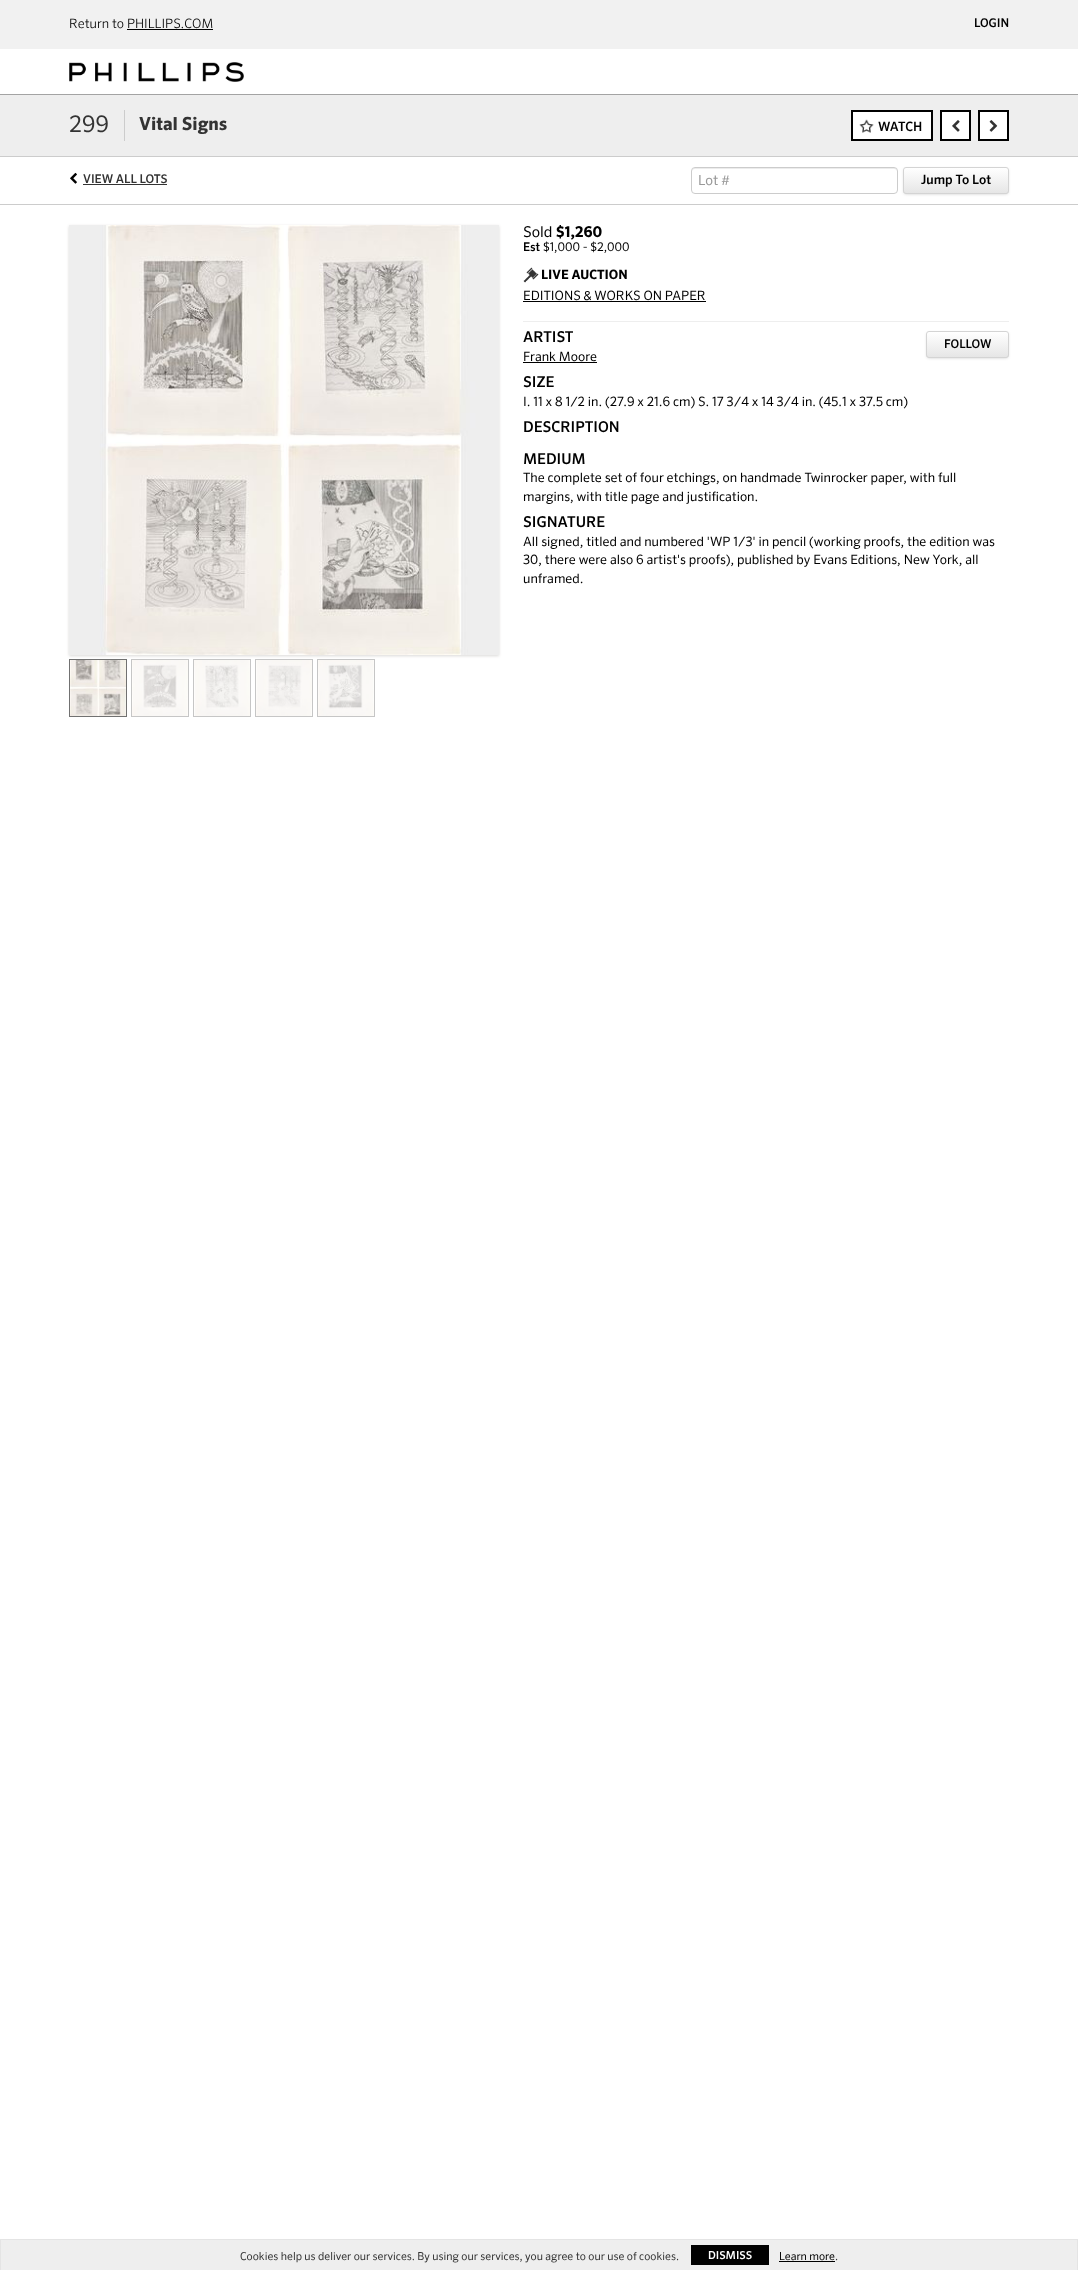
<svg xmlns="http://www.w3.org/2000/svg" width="1078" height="2270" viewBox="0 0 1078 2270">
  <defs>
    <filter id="blur1" x="-50%" y="-200%" width="200%" height="500%"><feGaussianBlur stdDeviation="1.5"/></filter>
    <clipPath id="clip1"><rect x="903" y="167" width="106" height="27" rx="3"/></clipPath>
    <linearGradient id="g1" gradientUnits="userSpaceOnUse" x1="956" y1="168" x2="956" y2="193"><stop offset="0" stop-color="#ffffff"/><stop offset="1" stop-color="#e6e6e6"/></linearGradient>
    <clipPath id="clip2"><rect x="926" y="331" width="83" height="27" rx="3"/></clipPath>
    <linearGradient id="g2" gradientUnits="userSpaceOnUse" x1="968" y1="332" x2="968" y2="357"><stop offset="0" stop-color="#ffffff"/><stop offset="1" stop-color="#e6e6e6"/></linearGradient>
  </defs>
  <rect width="100%" height="100%" fill="#ffffff"/>
  <rect x="0" y="94" width="1078" height="1" fill="#a3a3a3"/>
  <rect x="0" y="0" width="1078" height="49" fill="#f1f1f1"/>
  <text x="69" y="28" font-family="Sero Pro" font-size="13" font-weight="300" fill="#000000">Return to PHILLIPS.COM</text>
  <rect x="127" y="29" width="86" height="1" fill="#000000"/>
  <text x="974" y="27" font-family="Sero Pro" font-size="12" font-weight="500" fill="#000000">LOGIN</text>
  <image x="69" y="62" width="175" height="20" href="img1.png"/>
  <rect x="0" y="95" width="1078" height="61" fill="#eeeeee"/>
  <rect x="0" y="156" width="1078" height="1" fill="#cccccc"/>
  <text x="69" y="132" font-family="Sero Pro" font-size="23" fill="#333333">299</text>
  <rect x="124" y="110" width="1" height="31" fill="#cccccc"/>
  <text x="139" y="130" font-family="Sero Pro" font-size="18" font-weight="bold" fill="#333333">Vital Signs</text>
  <rect x="852" y="111" width="80" height="29" fill="#ffffff" stroke="#000000" stroke-width="2"/>
  <image x="859" y="119" width="15" height="14" href="img2.png"/>
  <text x="878" y="131" font-family="Sero Pro" font-size="13" font-weight="500" fill="#000000">WATCH</text>
  <rect x="941" y="111" width="29" height="29" fill="#ffffff" stroke="#000000" stroke-width="2"/>
  <image x="952" y="120" width="8" height="12" href="img3.png"/>
  <rect x="979" y="111" width="29" height="29" fill="#ffffff" stroke="#000000" stroke-width="2"/>
  <image x="989" y="120" width="9" height="12" href="img4.png"/>
  <image x="70" y="172" width="7" height="12" href="img5.png"/>
  <text x="83" y="183" font-family="Sero Pro" font-size="12" font-weight="500" fill="#333333">VIEW ALL LOTS</text>
  <rect x="83" y="184" width="84" height="1" fill="#333333"/>
  <path d="M695 169H894C896 169 897 170 897 172C897 170 896 168 894 168H695C693 168 692 170 692 172C692 170 693 169 695 169Z" fill="#ececec"/>
  <rect x="691.5" y="167.5" width="206" height="26" rx="3.5" fill="none" stroke="#cccccc"/>
  <text x="698" y="185" font-family="Sero Pro" font-size="14" fill="#999999">Lot #</text>
  <rect x="904" y="169" width="104" height="25" rx="2" fill="#000000" fill-opacity="0.2" filter="url(#blur1)"/>
  <g clip-path="url(#clip1)">
    <rect x="903" y="168" width="106" height="25" fill="url(#g1)"/>
  </g>
  <path d="M906 169H1006C1007 169 1008 170 1008 171C1008 170 1008 168 1006 168H923C922 168 904 163 904 171C904 170 905 169 906 169Z" fill="#ffffff" fill-opacity="0.4"/>
  <rect x="903.5" y="167.5" width="105" height="26" rx="2.5" fill="none" stroke="#d4d4d4"/>
  <text x="921" y="184" font-family="Sero Pro" font-size="13" font-weight="500" fill="#000000">Jump To Lot</text>
  <rect x="0" y="204" width="1078" height="1" fill="#cccccc"/>
  <rect x="69" y="226" width="430" height="430" fill="#dad9d7" filter="url(#blur1)"/>
  <image x="69" y="225" width="430" height="430" href="img6.png"/>
  <rect x="69.5" y="659.5" width="57" height="57" fill="none" stroke="#717171"/>
  <rect x="131.5" y="659.5" width="57" height="57" fill="none" stroke="#c6c6c6"/>
  <rect x="193.5" y="659.5" width="57" height="57" fill="none" stroke="#c6c6c6"/>
  <rect x="255.5" y="659.5" width="57" height="57" fill="none" stroke="#c6c6c6"/>
  <rect x="317.5" y="659.5" width="57" height="57" fill="none" stroke="#c6c6c6"/>
  <image x="70" y="660" width="56" height="56" href="img7.png"/>
  <image x="132" y="660" width="56" height="56" href="img8.png"/>
  <image x="194" y="660" width="56" height="56" href="img9.png"/>
  <image x="256" y="660" width="56" height="56" href="img10.png"/>
  <image x="318" y="660" width="56" height="56" href="img11.png"/>
  <text x="523" y="237" font-family="Sero Pro" font-size="15" fill="#000000">Sold</text>
  <text x="556" y="237" font-family="Sero Pro" font-size="15" font-weight="bold" fill="#000000">$1,260</text>
  <text x="523" y="251" font-family="Sero Pro" font-size="12" font-weight="500" fill="#000000">Est</text>
  <text x="543" y="251" font-family="Sero Pro" font-size="12" fill="#000000">$1,000 - $2,000</text>
  <image x="523" y="267" width="16" height="16" href="img12.png"/>
  <text x="541" y="279" font-family="Sero Pro" font-size="13" font-weight="bold" fill="#000000">LIVE AUCTION</text>
  <text x="523" y="300" font-family="Sero Pro" font-size="13" fill="#000000">EDITIONS &amp; WORKS ON PAPER</text>
  <rect x="523" y="301" width="183" height="1" fill="#000000"/>
  <rect x="523" y="321" width="486" height="1" fill="#eeeeee"/>
  <text x="523" y="342" font-family="Sero Pro" font-size="15" font-weight="500" fill="#000000">ARTIST</text>
  <rect x="927" y="333" width="81" height="25" rx="2" fill="#000000" fill-opacity="0.2" filter="url(#blur1)"/>
  <g clip-path="url(#clip2)">
    <rect x="926" y="332" width="83" height="25" fill="url(#g2)"/>
  </g>
  <path d="M929 333H1006C1007 333 1008 334 1008 335C1008 328 996 332 993 332H942C939 332 927 328 927 335C927 334 928 333 929 333Z" fill="#ffffff" fill-opacity="0.4"/>
  <rect x="926.5" y="331.5" width="82" height="26" rx="2.5" fill="none" stroke="#d4d4d4"/>
  <text x="944" y="348" font-family="Sero Pro" font-size="12" font-weight="500" fill="#000000">FOLLOW</text>
  <text x="523" y="361" font-family="Sero Pro" font-size="13" fill="#000000">Frank Moore</text>
  <rect x="523" y="362" width="74" height="1" fill="#000000"/>
  <text x="523" y="387" font-family="Sero Pro" font-size="15" font-weight="500" fill="#000000">SIZE</text>
  <text x="523" y="406" font-family="Sero Pro" font-size="13" fill="#000000">I. 11 x 8 1/2 in. (27.9 x 21.6 cm) S. 17 3/4 x 14 3/4 in. (45.1 x 37.5 cm)</text>
  <text x="523" y="432" font-family="Sero Pro" font-size="15" font-weight="500" fill="#000000">DESCRIPTION</text>
  <text x="523" y="464" font-family="Sero Pro" font-size="15" font-weight="500" fill="#000000">MEDIUM</text>
  <text x="523" y="482" font-family="Sero Pro" font-size="13" fill="#000000">The complete set of four etchings, on handmade Twinrocker paper, with full</text>
  <text x="523" y="501" font-family="Sero Pro" font-size="13" fill="#000000">margins, with title page and justification.</text>
  <text x="523" y="527" font-family="Sero Pro" font-size="15" font-weight="500" fill="#000000">SIGNATURE</text>
  <text x="523" y="546" font-family="Sero Pro" font-size="13" fill="#000000">All signed, titled and numbered 'WP 1/3' in pencil (working proofs, the edition was</text>
  <text x="523" y="564" font-family="Sero Pro" font-size="13" fill="#000000">30, there were also 6 artist's proofs), published by Evans Editions, New York, all</text>
  <text x="523" y="583" font-family="Sero Pro" font-size="13" fill="#000000">unframed.</text>
  <rect x="1" y="2240" width="1076" height="30" fill="#eeeeee"/>
  <rect x="0" y="2239" width="1078" height="1" fill="#e4e4e4"/>
  <rect x="1077" y="2239" width="1" height="31" fill="#e4e4e4"/>
  <rect x="0" y="2239" width="1" height="31" fill="#e4e4e4"/>
  <text x="240" y="2260" font-family="Sero Pro" font-size="11" fill="#333333">Cookies help us deliver our services. By using our services, you agree to our use of cookies.</text>
  <rect x="691" y="2245" width="78" height="20" fill="#000000"/>
  <text x="708" y="2259" font-family="Sero Pro" font-size="11" font-weight="500" fill="#ffffff">DISMISS</text>
  <text x="779" y="2260" font-family="Sero Pro" font-size="11" fill="#000000">Learn more</text>
  <rect x="779" y="2261" width="56" height="1" fill="#000000"/>
  <text x="835" y="2260" font-family="Sero Pro" font-size="11" fill="#333333">.</text>
</svg>
